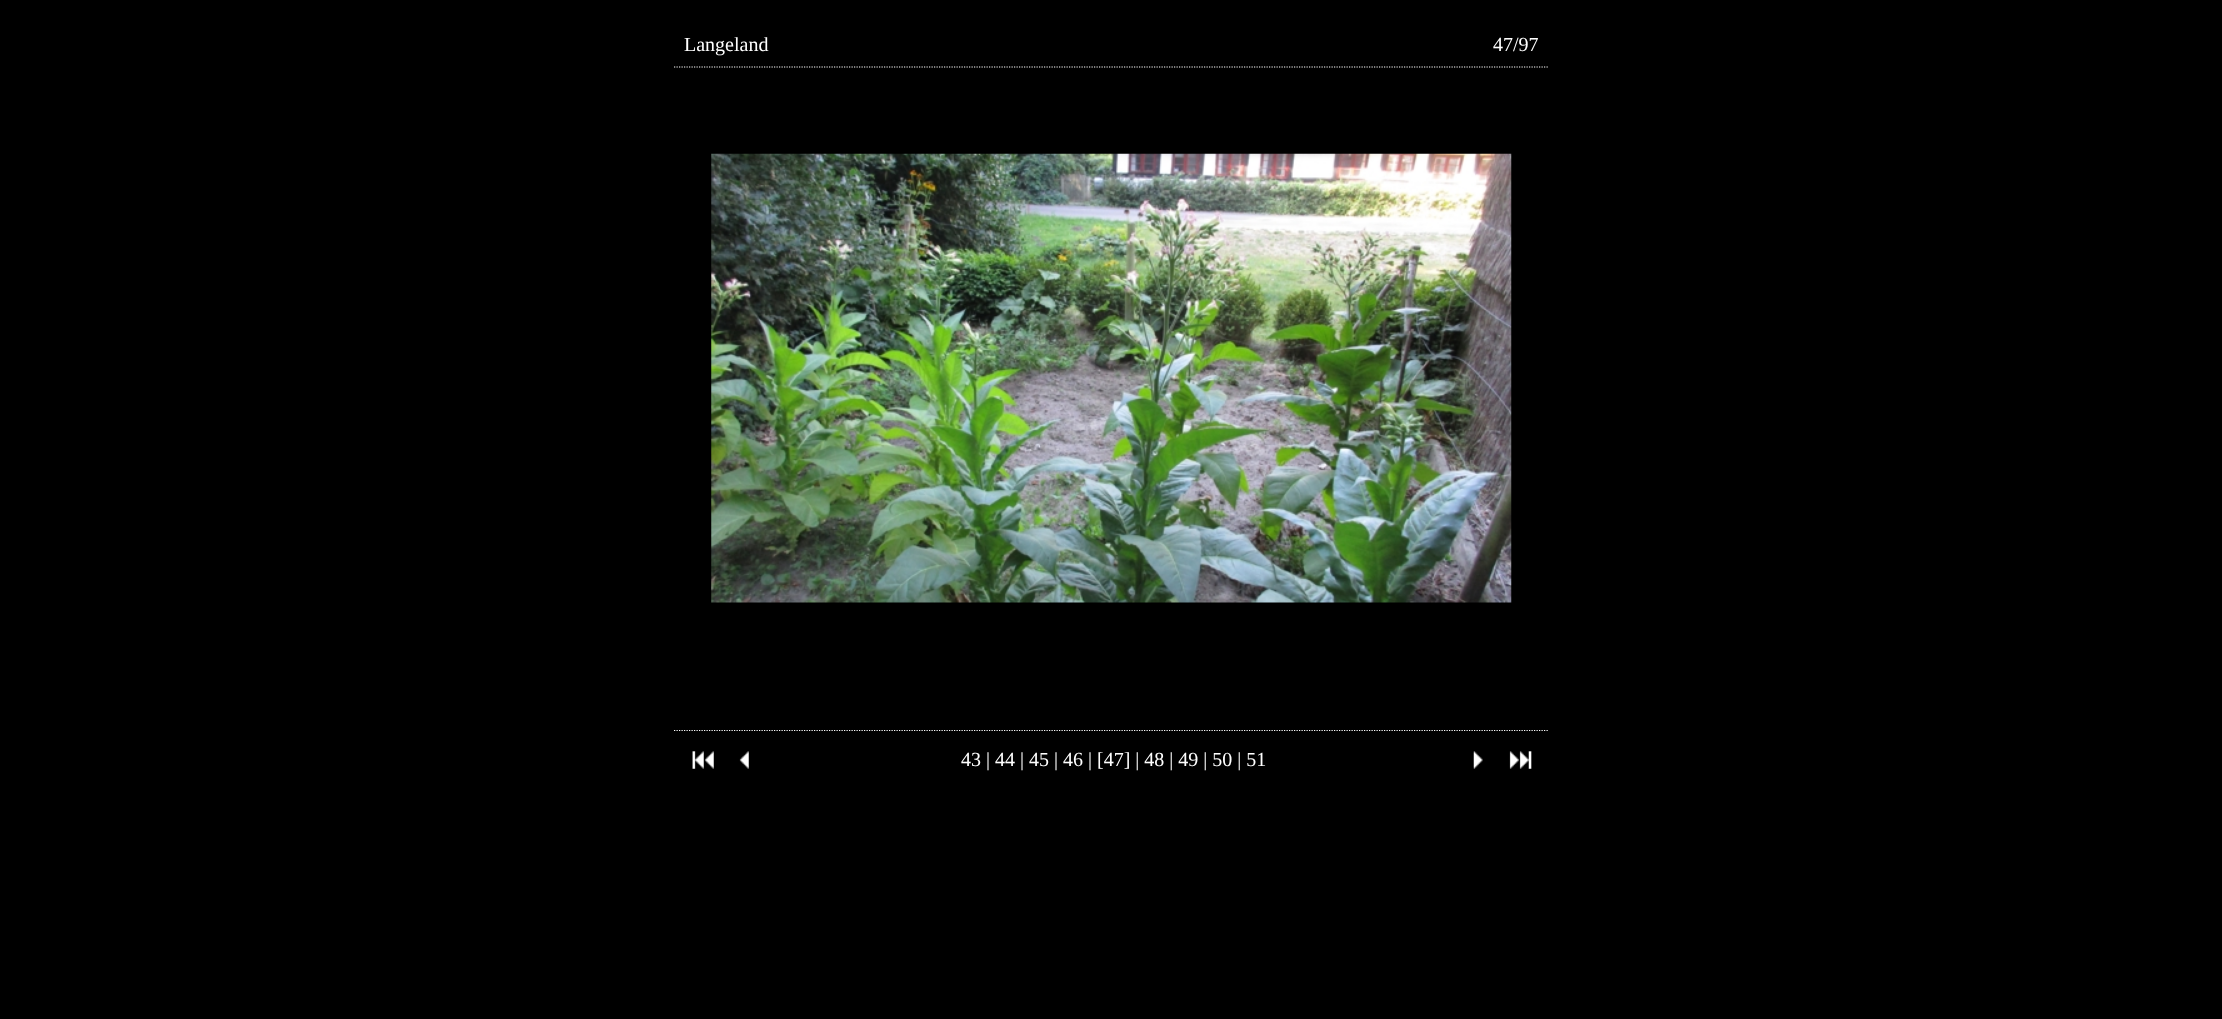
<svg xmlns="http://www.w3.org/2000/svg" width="2222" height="1019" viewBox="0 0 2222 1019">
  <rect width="100%" height="100%" fill="#000000"/>
  <path d="M674 67H1549" fill="none" stroke="#ffffff" stroke-width="1.2" stroke-dasharray="1.25 1.25"/>
  <text x="684" y="51" font-family="Liberation Serif" font-size="20" fill="#ffffff">Langeland</text>
  <text x="1493" y="51" font-family="Liberation Serif" font-size="20" fill="#ffffff">47/97</text>
  <image x="711" y="153" width="801" height="450" href="img1.png"/>
  <path d="M674 730.5H1549" fill="none" stroke="#ffffff" stroke-width="1.2" stroke-dasharray="1.25 1.25"/>
  <image x="692" y="751" width="22" height="18" href="img2.png"/>
  <image x="739" y="751" width="10" height="18" href="img3.png"/>
  <text x="961" y="766" font-family="Liberation Serif" font-size="20" fill="#ffffff">43 | 44 | 45 | 46 | [47] | 48 | 49 | 50 | 51</text>
  <image x="1473" y="751" width="10" height="18" href="img4.png"/>
  <image x="1509" y="751" width="23" height="18" href="img5.png"/>
</svg>
